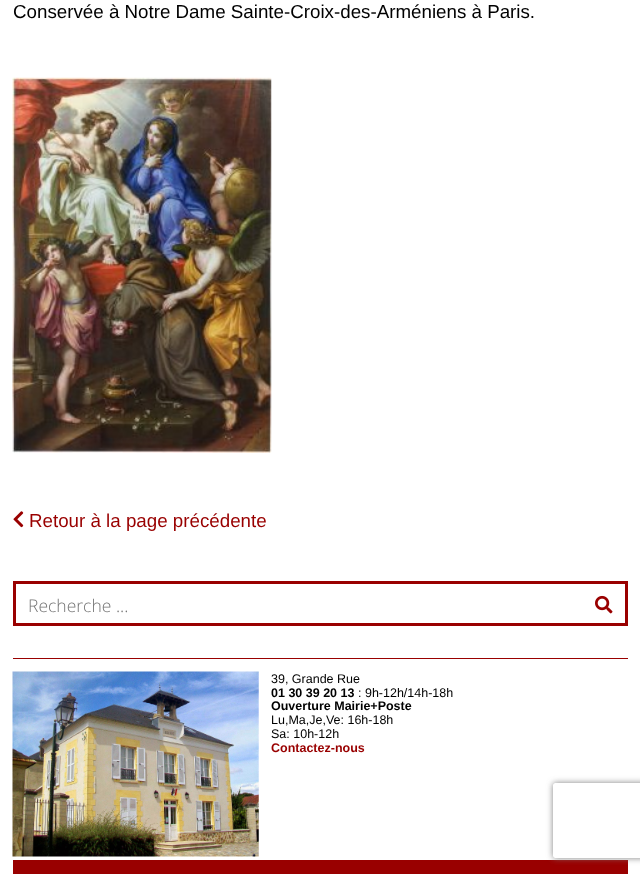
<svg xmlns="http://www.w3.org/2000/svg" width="640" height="874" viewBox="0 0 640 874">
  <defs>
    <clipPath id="clip1"><path d="M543 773H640V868H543ZM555.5 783H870.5C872 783 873 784 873 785.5V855.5C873 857 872 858 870.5 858H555.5C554 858 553 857 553 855.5V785.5C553 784 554 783 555.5 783Z" clip-rule="evenodd"/></clipPath>
    <filter id="blur1" x="-50%" y="-200%" width="200%" height="500%"><feGaussianBlur stdDeviation="3"/></filter>
  </defs>
  <rect width="100%" height="100%" fill="#ffffff"/>
  <text x="13" y="18" font-family="Liberation Sans" font-size="18.75" fill="#000000">Conservée à Notre Dame Sainte-Croix-des-Arméniens à Paris.</text>
  <image x="12" y="77" width="260" height="376" href="img1.png"/>
  <image x="13" y="511" width="11" height="17" href="img2.png"/>
  <text x="29" y="527" font-family="Liberation Sans" font-size="18.75" fill="#990000">Retour à la page précédente</text>
  <rect x="14.5" y="582.5" width="612" height="42" fill="none" stroke="#990000" stroke-width="3"/>
  <text x="28" y="612" font-family="Open Sans" font-size="17.5" font-weight="300" fill="#757575">Recherche ...</text>
  <image x="595" y="595" width="18" height="19" href="img3.png"/>
  <rect x="13" y="658" width="615" height="1" fill="#990000"/>
  <image x="12" y="671" width="247" height="186" href="img4.png"/>
  <text x="271" y="683" font-family="Liberation Sans" font-size="12.5" fill="#000000">39, Grande Rue</text>
  <text x="271" y="697" font-family="Liberation Sans" font-size="12.5" font-weight="bold" fill="#000000">01 30 39 20 13</text>
  <text x="358" y="697" font-family="Liberation Sans" font-size="12.5" fill="#000000">: 9h-12h/14h-18h</text>
  <text x="271" y="710" font-family="Liberation Sans" font-size="12.5" font-weight="bold" fill="#000000">Ouverture Mairie+Poste</text>
  <text x="271" y="724" font-family="Liberation Sans" font-size="12.5" fill="#000000">Lu,Ma,Je,Ve: 16h-18h</text>
  <text x="271" y="738" font-family="Liberation Sans" font-size="12.5" fill="#000000">Sa: 10h-12h</text>
  <text x="271" y="752" font-family="Liberation Sans" font-size="12.5" font-weight="bold" fill="#990000">Contactez-nous</text>
  <rect x="13" y="860" width="615" height="14" fill="#990000"/>
  <g clip-path="url(#clip1)">
    <rect x="553" y="783" width="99" height="75" rx="2.5" fill="#808080" filter="url(#blur1)"/>
  </g>
</svg>
